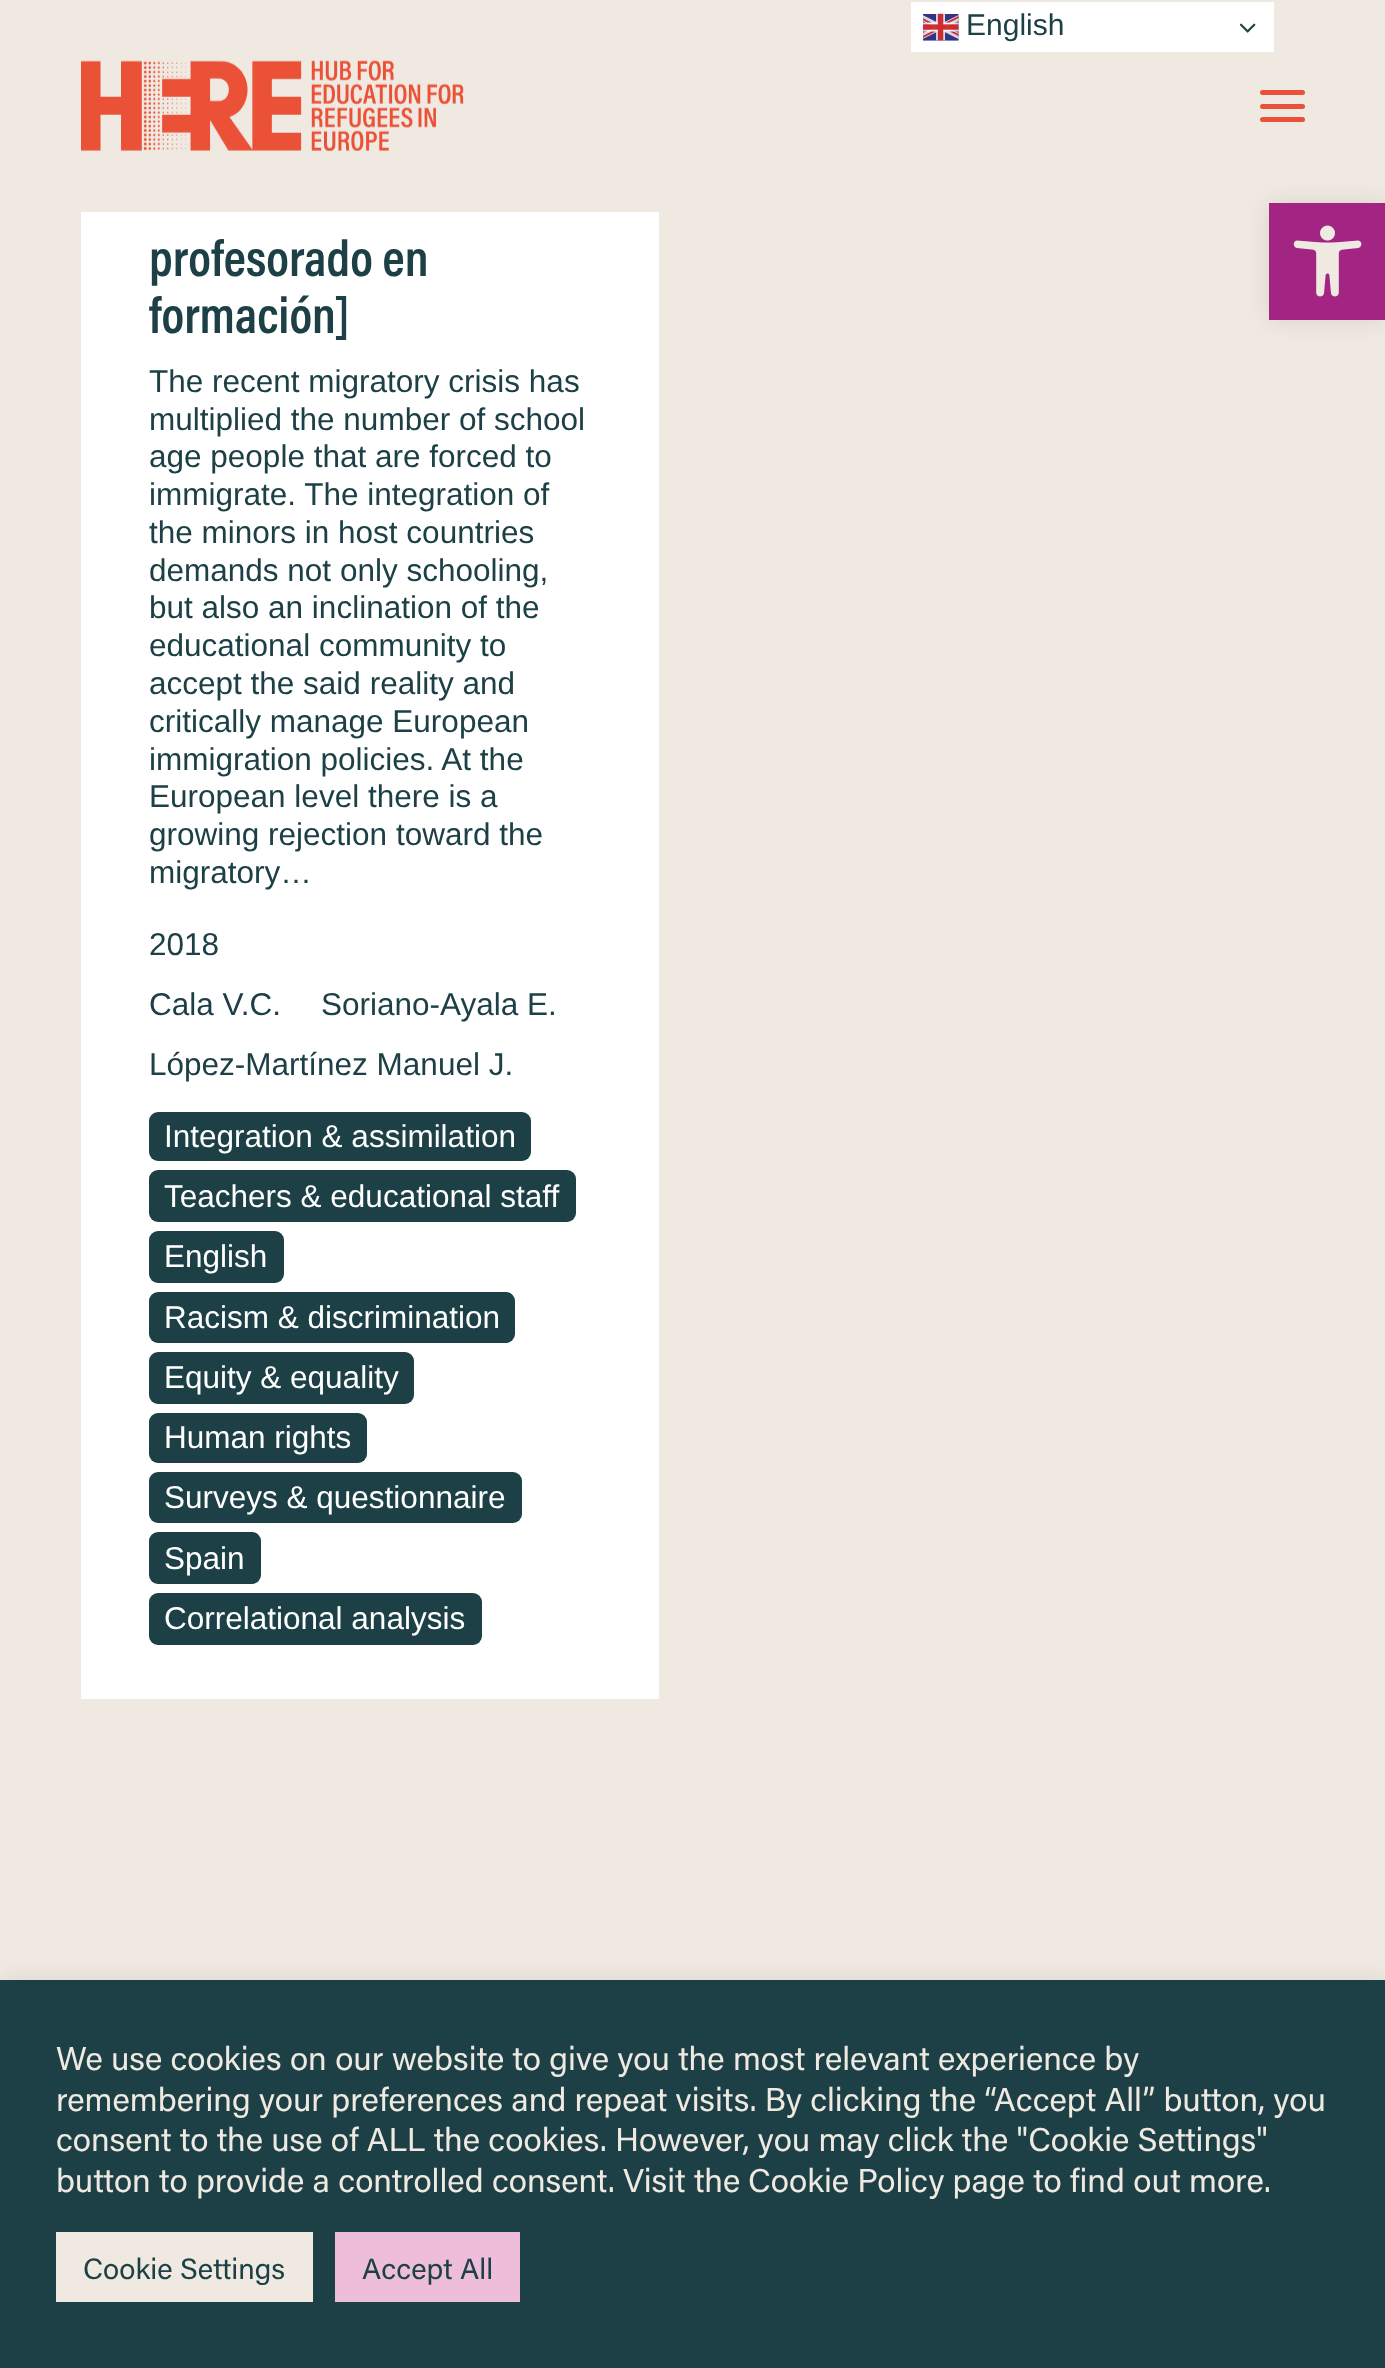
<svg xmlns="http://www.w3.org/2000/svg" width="1385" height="2368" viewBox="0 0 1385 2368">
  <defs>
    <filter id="blur1" x="-50%" y="-200%" width="200%" height="500%"><feGaussianBlur stdDeviation="11"/></filter>
  </defs>
  <rect width="100%" height="100%" fill="#efe9e1"/>
  <rect x="911" y="2" width="363" height="50" fill="#ffffff"/>
  <image x="923" y="13" width="36" height="28" href="img1.png"/>
  <text x="966" y="35" font-family="Liberation Sans" font-size="30" fill="#1c4045">English</text>
  <image x="1240" y="23" width="16" height="10" href="img2.png"/>
  <image x="81" y="60" width="383" height="91" href="img3.png"/>
  <rect x="1260" y="104" width="45" height="5" rx="2.5" fill="#eb5138"/>
  <rect x="1260" y="90" width="45" height="5" rx="2.5" fill="#eb5138"/>
  <rect x="1260" y="117" width="45" height="5" rx="2.5" fill="#eb5138"/>
  <rect x="81" y="212" width="578" height="1487" fill="#ffffff"/>
  <text x="149" y="276" font-family="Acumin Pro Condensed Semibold" font-size="51.75" font-weight="600" fill="#1c4045">profesorado en</text>
  <text x="149" y="333" font-family="Acumin Pro Condensed Semibold" font-size="51.75" font-weight="600" fill="#1c4045">formación]</text>
  <text x="149" y="392" font-family="Liberation Sans" font-size="31.5" fill="#1c4045">The recent migratory crisis has</text>
  <text x="149" y="430" font-family="Liberation Sans" font-size="31.5" fill="#1c4045">multiplied the number of school</text>
  <text x="149" y="467" font-family="Liberation Sans" font-size="31.5" fill="#1c4045">age people that are forced to</text>
  <text x="149" y="505" font-family="Liberation Sans" font-size="31.5" fill="#1c4045">immigrate. The integration of</text>
  <text x="149" y="543" font-family="Liberation Sans" font-size="31.5" fill="#1c4045">the minors in host countries</text>
  <text x="149" y="581" font-family="Liberation Sans" font-size="31.5" fill="#1c4045">demands not only schooling,</text>
  <text x="149" y="618" font-family="Liberation Sans" font-size="31.5" fill="#1c4045">but also an inclination of the</text>
  <text x="149" y="656" font-family="Liberation Sans" font-size="31.5" fill="#1c4045">educational community to</text>
  <text x="149" y="694" font-family="Liberation Sans" font-size="31.5" fill="#1c4045">accept the said reality and</text>
  <text x="149" y="732" font-family="Liberation Sans" font-size="31.5" fill="#1c4045">critically manage European</text>
  <text x="149" y="770" font-family="Liberation Sans" font-size="31.5" fill="#1c4045">immigration policies. At the</text>
  <text x="149" y="807" font-family="Liberation Sans" font-size="31.5" fill="#1c4045">European level there is a</text>
  <text x="149" y="845" font-family="Liberation Sans" font-size="31.5" fill="#1c4045">growing rejection toward the</text>
  <text x="149" y="883" font-family="Liberation Sans" font-size="31.5" fill="#1c4045">migratory…</text>
  <text x="149" y="955" font-family="Liberation Sans" font-size="31.5" fill="#1c4045">2018</text>
  <text x="149" y="1015" font-family="Liberation Sans" font-size="31.5" fill="#1c4045">Cala V.C.</text>
  <text x="321" y="1015" font-family="Liberation Sans" font-size="31.5" fill="#1c4045">Soriano-Ayala E.</text>
  <text x="149" y="1075" font-family="Liberation Sans" font-size="31.5" fill="#1c4045">López-Martínez Manuel J.</text>
  <rect x="149" y="1112" width="382" height="49" rx="9" fill="#1c4045"/>
  <text x="164" y="1147" font-family="Liberation Sans" font-size="31.5" fill="#ffffff">Integration &amp; assimilation</text>
  <rect x="149" y="1170" width="427" height="52" rx="9" fill="#1c4045"/>
  <text x="164" y="1207" font-family="Liberation Sans" font-size="31.5" fill="#ffffff">Teachers &amp; educational staff</text>
  <rect x="149" y="1231" width="135" height="52" rx="9" fill="#1c4045"/>
  <text x="164" y="1267" font-family="Liberation Sans" font-size="31.5" fill="#ffffff">English</text>
  <rect x="149" y="1292" width="366" height="51" rx="9" fill="#1c4045"/>
  <text x="164" y="1328" font-family="Liberation Sans" font-size="31.5" fill="#ffffff">Racism &amp; discrimination</text>
  <rect x="149" y="1352" width="265" height="52" rx="9" fill="#1c4045"/>
  <text x="164" y="1388" font-family="Liberation Sans" font-size="31.5" fill="#ffffff">Equity &amp; equality</text>
  <rect x="149" y="1413" width="218" height="50" rx="9" fill="#1c4045"/>
  <text x="164" y="1448" font-family="Liberation Sans" font-size="31.5" fill="#ffffff">Human rights</text>
  <rect x="149" y="1472" width="373" height="51" rx="9" fill="#1c4045"/>
  <text x="164" y="1508" font-family="Liberation Sans" font-size="31.5" fill="#ffffff">Surveys &amp; questionnaire</text>
  <rect x="149" y="1532" width="112" height="52" rx="9" fill="#1c4045"/>
  <text x="164" y="1569" font-family="Liberation Sans" font-size="31.5" fill="#ffffff">Spain</text>
  <rect x="149" y="1593" width="333" height="52" rx="9" fill="#1c4045"/>
  <text x="164" y="1629" font-family="Liberation Sans" font-size="31.5" fill="#ffffff">Correlational analysis</text>
  <rect x="1269" y="203" width="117" height="117" fill="#000000" fill-opacity="0.1" filter="url(#blur1)"/>
  <rect x="1269" y="203" width="116" height="117" fill="#a32583"/>
  <image x="1293" y="225" width="69" height="72" href="img4.png"/>
  <rect x="0" y="1978" width="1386" height="389" fill="#acabab" fill-opacity="0.3" filter="url(#blur1)"/>
  <rect x="0" y="1980" width="1385" height="388" fill="#1c4045"/>
  <text x="56" y="2070" font-family="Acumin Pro" font-size="33" fill="#efe9e1">We use cookies on our website to give you the most relevant experience by</text>
  <text x="56" y="2111" font-family="Acumin Pro" font-size="33" fill="#efe9e1">remembering your preferences and repeat visits. By clicking the “Accept All” button, you</text>
  <text x="56" y="2151" font-family="Acumin Pro" font-size="33" fill="#efe9e1">consent to the use of ALL the cookies. However, you may click the "Cookie Settings"</text>
  <text x="56" y="2192" font-family="Acumin Pro" font-size="33" fill="#efe9e1">button to provide a controlled consent. Visit the</text>
  <text x="748" y="2192" font-family="Acumin Pro" font-size="33" fill="#efe9e1">Cookie Policy page to find out more.</text>
  <rect x="56" y="2232" width="257" height="70" fill="#efe9e1"/>
  <text x="83" y="2279" font-family="Acumin Pro" font-size="29.25" fill="#1c4045">Cookie Settings</text>
  <rect x="335" y="2232" width="185" height="70" fill="#edbdd9"/>
  <text x="362" y="2279" font-family="Acumin Pro" font-size="29.25" fill="#1c4045">Accept All</text>
</svg>
